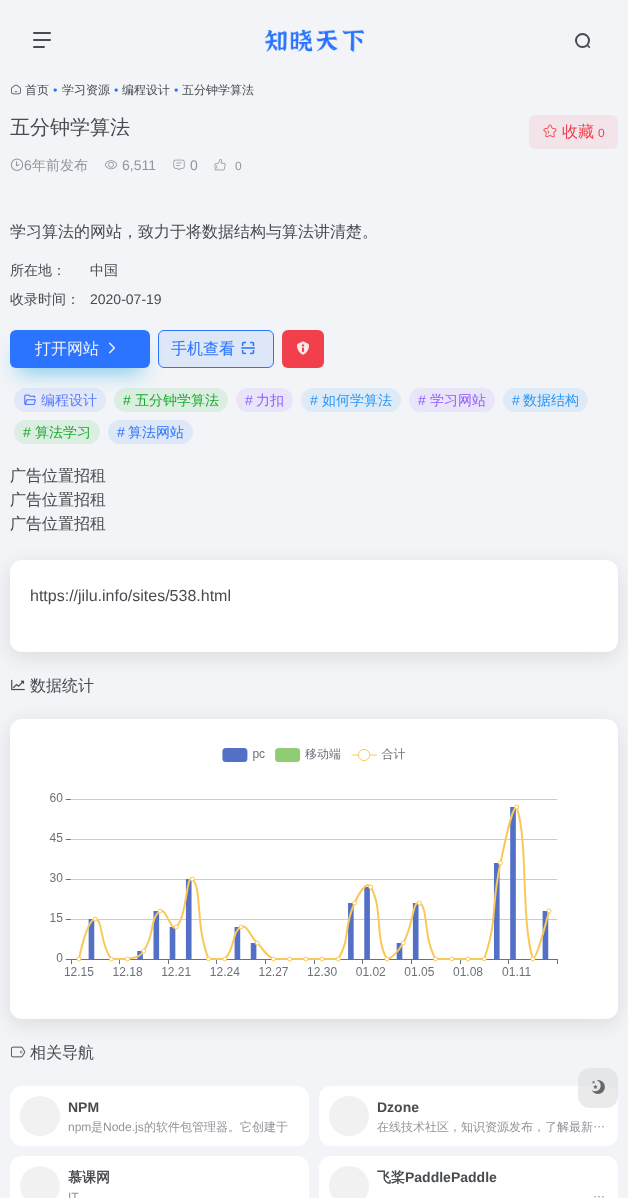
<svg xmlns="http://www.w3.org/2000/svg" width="628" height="1198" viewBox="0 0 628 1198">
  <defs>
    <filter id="blur1" x="-50%" y="-200%" width="200%" height="500%"><feGaussianBlur stdDeviation="10"/></filter>
  </defs>
  <rect width="100%" height="100%" fill="#f2f4f7"/>
  <rect x="33" y="32" width="18" height="2" rx="1" fill="#484b4f"/>
  <rect x="33" y="39" width="18" height="2" rx="1" fill="#484b4f"/>
  <rect x="33" y="46" width="12" height="2" rx="1" fill="#484b4f"/>
  <image x="264" y="29" width="101" height="23" href="img1.png"/>
  <circle cx="582.5" cy="40.5" r="6.5" fill="none" stroke="#484b4f" stroke-width="2"/>
  <path d="M588.5 45L590 47C590.5 47.5 589.5 48.5 589 48L588 47C586 45.5 587.5 44 588.5 45Z" fill="#484b4f"/>
  <image x="11" y="84" width="10" height="11" href="img2.png"/>
  <text x="25" y="94" font-family="WenQuanYi Zen Hei" font-size="12" font-weight="500" fill="#484b4f">首页</text>
  <text x="53" y="94" font-family="Liberation Sans" font-size="12" font-style="italic" fill="#2a74ff">•</text>
  <text x="62" y="94" font-family="WenQuanYi Zen Hei" font-size="12" font-weight="500" fill="#484b4f">学习资源</text>
  <text x="114" y="94" font-family="Liberation Sans" font-size="12" font-style="italic" fill="#2a74ff">•</text>
  <text x="122" y="94" font-family="WenQuanYi Zen Hei" font-size="12" font-weight="500" fill="#484b4f">编程设计</text>
  <text x="174" y="94" font-family="Liberation Sans" font-size="12" font-style="italic" fill="#2a74ff">•</text>
  <text x="182" y="94" font-family="WenQuanYi Zen Hei" font-size="12" font-weight="500" fill="#484b4f">五分钟学算法</text>
  <text x="10" y="134" font-family="WenQuanYi Zen Hei" font-size="20" font-weight="500" fill="#484b4f">五分钟学算法</text>
  <image x="10" y="158" width="14" height="13" href="img3.png"/>
  <text x="24" y="170" font-family="Liberation Sans" font-size="14" fill="#93959a">6</text>
  <text x="32" y="170" font-family="WenQuanYi Zen Hei" font-size="14" font-weight="500" fill="#93959a">年前发布</text>
  <image x="104" y="160" width="14" height="10" href="img4.png"/>
  <text x="122" y="170" font-family="Liberation Sans" font-size="14" fill="#93959a">6,511</text>
  <image x="173" y="159" width="12" height="11" href="img5.png"/>
  <text x="190" y="170" font-family="Liberation Sans" font-size="14" fill="#93959a">0</text>
  <image x="214" y="159" width="12" height="12" href="img6.png"/>
  <text x="235" y="170" font-family="Liberation Sans" font-size="12" fill="#93959a">0</text>
  <rect x="529" y="115" width="89" height="34" rx="6" fill="#f3e4ea"/>
  <image x="543" y="124" width="14" height="14" href="img7.png"/>
  <text x="562" y="137" font-family="WenQuanYi Zen Hei" font-size="16" font-weight="500" fill="#f1404b">收藏</text>
  <text x="598" y="137" font-family="Liberation Sans" font-size="12" fill="#f1404b">0</text>
  <text x="10" y="237" font-family="WenQuanYi Zen Hei" font-size="16" font-weight="500" fill="#484b4f">学习算法的网站，致力于将数据结构与算法讲清楚。</text>
  <text x="10" y="275" font-family="WenQuanYi Zen Hei" font-size="14" font-weight="500" fill="#484b4f">所在地：</text>
  <text x="90" y="275" font-family="WenQuanYi Zen Hei" font-size="14" font-weight="500" fill="#484b4f">中国</text>
  <text x="10" y="304" font-family="WenQuanYi Zen Hei" font-size="14" font-weight="500" fill="#484b4f">收录时间：</text>
  <text x="90" y="304" font-family="Liberation Sans" font-size="14" fill="#484b4f">2020-07-19</text>
  <rect x="18" y="350" width="124" height="22" fill="#26a9e6" fill-opacity="0.6" filter="url(#blur1)"/>
  <rect x="10" y="330" width="140" height="38" rx="6" fill="#2a74ff"/>
  <text x="35" y="354" font-family="WenQuanYi Zen Hei" font-size="16" font-weight="500" fill="#f1f2f3">打开网站</text>
  <image x="109" y="342" width="6" height="12" href="img8.png"/>
  <rect x="158.5" y="330.5" width="115" height="37" rx="5.5" fill="#2a74ff" fill-opacity="0.1" stroke="#2a74ff"/>
  <text x="171" y="354" font-family="WenQuanYi Zen Hei" font-size="16" font-weight="500" fill="#2a74ff">手机查看</text>
  <image x="241" y="341" width="14" height="14" href="img9.png"/>
  <rect x="282" y="330" width="42" height="38" rx="6" fill="#f1404b"/>
  <image x="297" y="341" width="12" height="14" href="img10.png"/>
  <rect x="14" y="388" width="92" height="24" rx="12" fill="#5c7dff" fill-opacity="0.1"/>
  <image x="24" y="394" width="12" height="11" href="img11.png"/>
  <text x="41" y="405" font-family="WenQuanYi Zen Hei" font-size="14" font-weight="500" fill="#5c7cff">编程设计</text>
  <rect x="114" y="388" width="114" height="24" rx="12" fill="#13bc29" fill-opacity="0.1"/>
  <text x="123" y="405" font-family="Liberation Sans" font-size="14" fill="#19aa2c">#</text>
  <text x="135" y="405" font-family="WenQuanYi Zen Hei" font-size="14" font-weight="500" fill="#19aa2c">五分钟学算法</text>
  <rect x="236" y="388" width="57" height="24" rx="12" fill="#e9e5f8"/>
  <text x="245" y="405" font-family="Liberation Sans" font-size="14" fill="#955cff">#</text>
  <text x="256" y="405" font-family="WenQuanYi Zen Hei" font-size="14" font-weight="500" fill="#955cff">力扣</text>
  <rect x="301" y="388" width="100" height="24" rx="12" fill="#deebf7"/>
  <text x="310" y="405" font-family="Liberation Sans" font-size="14" fill="#2997f7">#</text>
  <text x="322" y="405" font-family="WenQuanYi Zen Hei" font-size="14" font-weight="500" fill="#2997f7">如何学算法</text>
  <rect x="409" y="388" width="86" height="24" rx="12" fill="#e9e5f8"/>
  <text x="418" y="405" font-family="Liberation Sans" font-size="14" fill="#955cff">#</text>
  <text x="430" y="405" font-family="WenQuanYi Zen Hei" font-size="14" font-weight="500" fill="#955cff">学习网站</text>
  <rect x="503" y="388" width="85" height="24" rx="12" fill="#deebf7"/>
  <text x="512" y="405" font-family="Liberation Sans" font-size="14" fill="#2997f7">#</text>
  <text x="523" y="405" font-family="WenQuanYi Zen Hei" font-size="14" font-weight="500" fill="#2997f7">数据结构</text>
  <rect x="14" y="420" width="86" height="24" rx="12" fill="#dceee2"/>
  <text x="23" y="437" font-family="Liberation Sans" font-size="14" fill="#19aa2c">#</text>
  <text x="35" y="437" font-family="WenQuanYi Zen Hei" font-size="14" font-weight="500" fill="#19aa2c">算法学习</text>
  <rect x="108" y="420" width="85" height="24" rx="12" fill="#dee7f8"/>
  <text x="117" y="437" font-family="Liberation Sans" font-size="14" fill="#2a74ff">#</text>
  <text x="128" y="437" font-family="WenQuanYi Zen Hei" font-size="14" font-weight="500" fill="#2a74ff">算法网站</text>
  <text x="10" y="481" font-family="WenQuanYi Zen Hei" font-size="16" font-weight="500" fill="#484b4f">广告位置招租</text>
  <text x="10" y="505" font-family="WenQuanYi Zen Hei" font-size="16" font-weight="500" fill="#484b4f">广告位置招租</text>
  <text x="10" y="529" font-family="WenQuanYi Zen Hei" font-size="16" font-weight="500" fill="#484b4f">广告位置招租</text>
  <image x="11" y="679" width="14" height="12" href="img12.png"/>
  <rect x="10" y="565" width="608" height="92" rx="12" fill="#000000" fill-opacity="0.1" filter="url(#blur1)"/>
  <rect x="10" y="560" width="608" height="92" rx="12" fill="#ffffff"/>
  <text x="30" y="601" font-family="Liberation Sans" font-size="16" fill="#484b4f">https://jilu.info/sites/538.html</text>
  <text x="30" y="691" font-family="WenQuanYi Zen Hei" font-size="16" font-weight="500" fill="#484b4f">数据统计</text>
  <image x="11" y="1046" width="15" height="12" href="img14.png"/>
  <rect x="10" y="724" width="608" height="300" rx="12" fill="#000000" fill-opacity="0.1" filter="url(#blur1)"/>
  <rect x="10" y="719" width="608" height="300" rx="12" fill="#ffffff"/>
  <image x="49" y="748" width="509" height="228" href="img13.png"/>
  <text x="30" y="1058" font-family="WenQuanYi Zen Hei" font-size="16" font-weight="500" fill="#484b4f">相关导航</text>
  <rect x="10" y="1086" width="299" height="60" rx="12" fill="#ffffff"/>
  <circle cx="40" cy="1116" r="20" fill="#f1f1f1"/>
  <text x="68" y="1112" font-family="Liberation Sans" font-size="14" font-weight="bold" fill="#484b4f">NPM</text>
  <text x="68" y="1131" font-family="Liberation Sans" font-size="12" fill="#93959a">npm</text>
  <text x="91" y="1131" font-family="WenQuanYi Zen Hei" font-size="12" font-weight="500" fill="#93959a">是</text>
  <text x="103" y="1131" font-family="Liberation Sans" font-size="12" fill="#93959a">Node.js</text>
  <text x="144" y="1131" font-family="WenQuanYi Zen Hei" font-size="12" font-weight="500" fill="#93959a">的软件包管理器。它创建于</text>
  <rect x="319" y="1086" width="299" height="60" rx="12" fill="#ffffff"/>
  <circle cx="349" cy="1116" r="20" fill="#f1f1f1"/>
  <text x="377" y="1112" font-family="Liberation Sans" font-size="14" font-weight="bold" fill="#484b4f">Dzone</text>
  <text x="377" y="1131" font-family="WenQuanYi Zen Hei" font-size="12" font-weight="500" fill="#93959a">在线技术社区，知识资源发布，了解最新…</text>
  <rect x="10" y="1156" width="299" height="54" rx="12" fill="#ffffff"/>
  <circle cx="40" cy="1186" r="20" fill="#f1f1f1"/>
  <text x="68" y="1182" font-family="WenQuanYi Zen Hei" font-size="14" font-weight="bold" fill="#484b4f">慕课网</text>
  <text x="68" y="1201" font-family="Liberation Sans" font-size="12" fill="#93959a">IT</text>
  <rect x="319" y="1156" width="299" height="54" rx="12" fill="#ffffff"/>
  <circle cx="349" cy="1186" r="20" fill="#f1f1f1"/>
  <text x="377" y="1182" font-family="WenQuanYi Zen Hei" font-size="14" font-weight="bold" fill="#484b4f">飞桨</text>
  <text x="405" y="1182" font-family="Liberation Sans" font-size="14" font-weight="bold" fill="#484b4f">PaddlePaddle</text>
  <text x="593" y="1201" font-family="WenQuanYi Zen Hei" font-size="12" font-weight="500" fill="#93959a">…</text>
  <rect x="578" y="1068" width="40" height="40" rx="12" fill="#dcdcdc" fill-opacity="0.6"/>
  <image x="592" y="1080" width="13" height="14" href="img15.png"/>
</svg>
